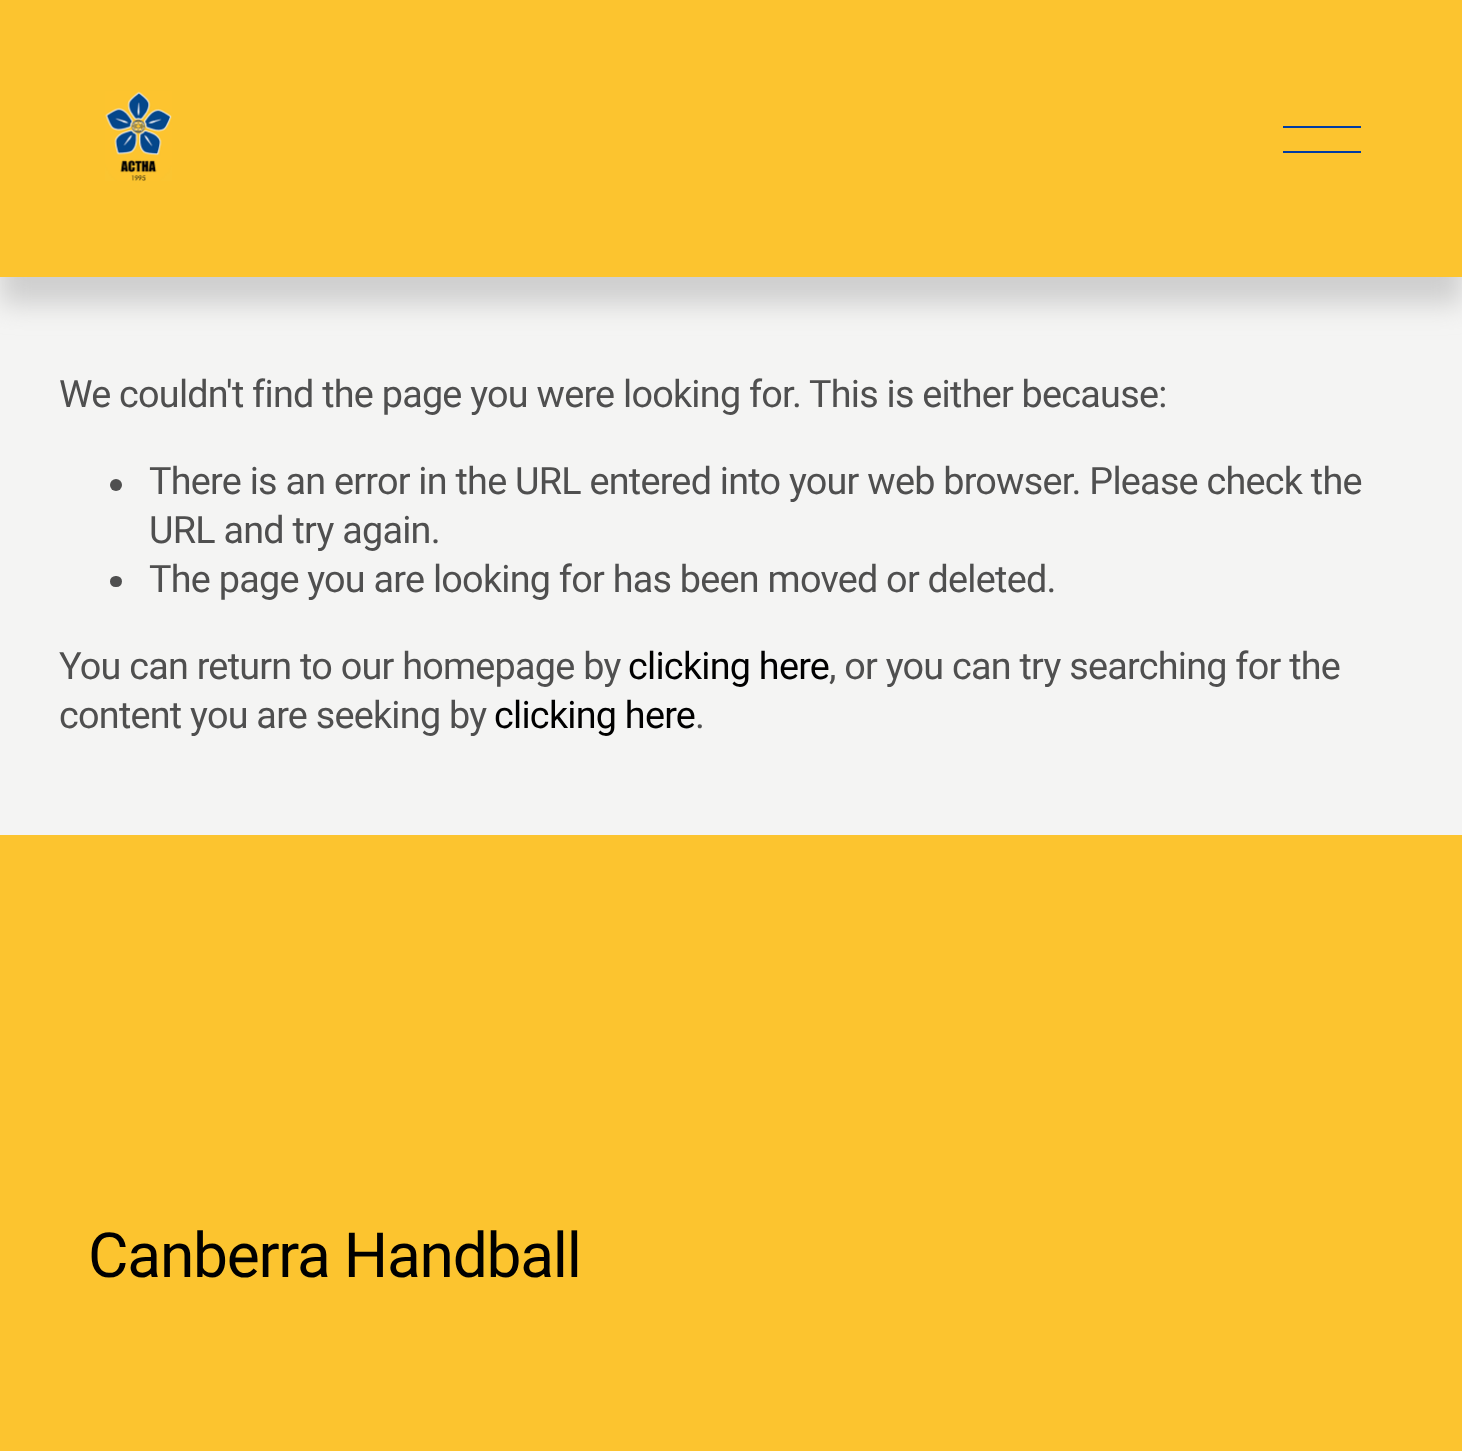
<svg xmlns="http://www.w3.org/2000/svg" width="1462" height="1451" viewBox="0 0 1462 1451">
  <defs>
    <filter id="blur1" x="-50%" y="-200%" width="200%" height="500%"><feGaussianBlur stdDeviation="13.5"/></filter>
  </defs>
  <rect width="100%" height="100%" fill="#f4f4f3"/>
  <rect x="0" y="27" width="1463" height="277" fill="#cfcfcf" filter="url(#blur1)"/>
  <rect x="0" y="0" width="1462" height="277" fill="#fcc42f"/>
  <image x="105" y="91" width="67" height="90" href="img1.png"/>
  <rect x="1283" y="126" width="78" height="2" fill="#003ca3"/>
  <rect x="1283" y="151" width="78" height="2" fill="#003ca3"/>
  <text x="59" y="407" font-family="Roboto" font-size="37.75" letter-spacing="-0.75" fill="#4f4f4f">We couldn't find the page you were looking for. This is either because:</text>
  <circle cx="116" cy="485" r="6" fill="#4f4f4f"/>
  <text x="149" y="494" font-family="Roboto" font-size="37.75" letter-spacing="-0.75" fill="#4f4f4f">There is an error in the URL entered into your web browser. Please check the</text>
  <text x="149" y="543" font-family="Roboto" font-size="37.75" letter-spacing="-0.75" fill="#4f4f4f">URL and try again.</text>
  <rect x="110" y="576" width="12" height="11" rx="5.5" fill="#4f4f4f"/>
  <text x="149" y="592" font-family="Roboto" font-size="37.75" letter-spacing="-0.75" fill="#4f4f4f">The page you are looking for has been moved or deleted.</text>
  <text x="59" y="679" font-family="Roboto" font-size="37.75" letter-spacing="-0.75" fill="#4f4f4f">You can return to our homepage by</text>
  <text x="628" y="679" font-family="Roboto" font-size="37.75" letter-spacing="-0.75" fill="#000000">clicking here</text>
  <text x="829" y="679" font-family="Roboto" font-size="37.75" letter-spacing="-0.75" fill="#4f4f4f">, or you can try searching for the</text>
  <text x="59" y="728" font-family="Roboto" font-size="37.75" letter-spacing="-0.75" fill="#4f4f4f">content you are seeking by</text>
  <text x="494" y="728" font-family="Roboto" font-size="37.75" letter-spacing="-0.75" fill="#000000">clicking here</text>
  <text x="695" y="728" font-family="Roboto" font-size="37.75" letter-spacing="-0.75" fill="#4f4f4f">.</text>
  <rect x="0" y="835" width="1462" height="616" fill="#fcc42f"/>
  <text x="88" y="1277" font-family="Roboto" font-size="62.25" letter-spacing="-1.25" fill="#000000">Canberra Handball</text>
</svg>
